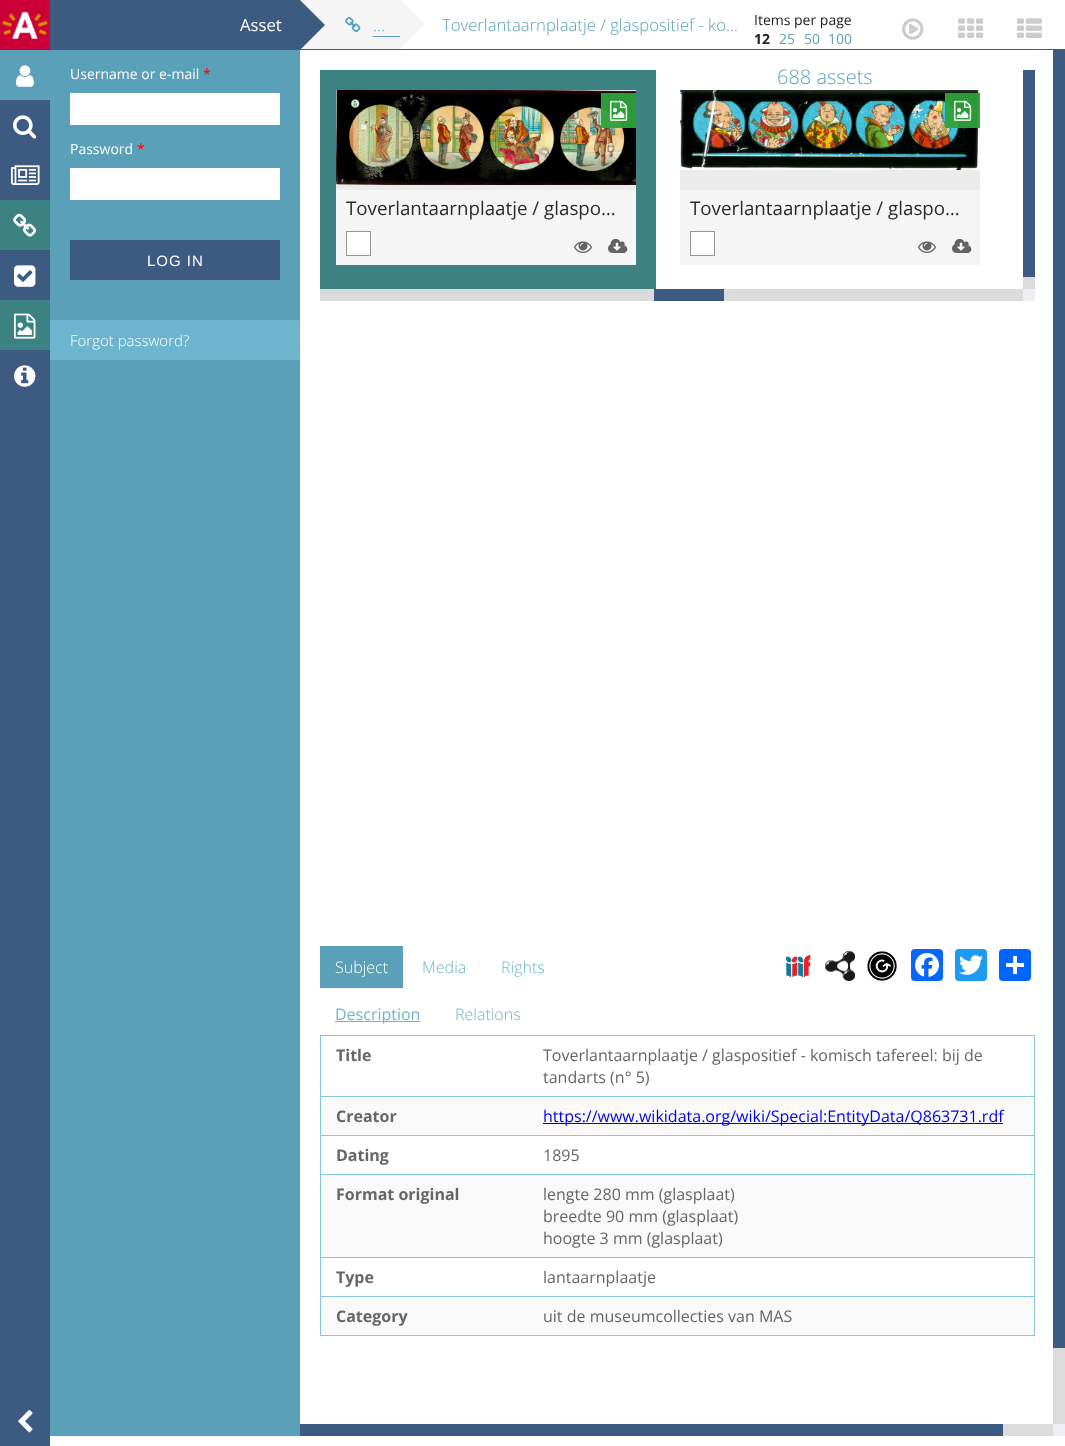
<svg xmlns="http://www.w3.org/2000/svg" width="1065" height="1446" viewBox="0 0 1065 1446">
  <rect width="100%" height="100%" fill="#ffffff"/>
  <rect x="0" y="100" width="50" height="1346" fill="#3d5b80"/>
  <image x="0" y="0" width="50" height="50" href="img1.png"/>
  <rect x="0" y="50" width="50" height="50" fill="#5ba0b9"/>
  <image x="16" y="65" width="18" height="22" href="img2.png"/>
  <image x="13" y="115" width="24" height="24" href="img3.png"/>
  <image x="11" y="165" width="29" height="20" href="img4.png"/>
  <rect x="0" y="200" width="50" height="50" fill="#3c8283"/>
  <image x="13" y="213" width="23" height="24" href="img5.png"/>
  <image x="14" y="265" width="22" height="22" href="img6.png"/>
  <rect x="0" y="300" width="50" height="50" fill="#3c8283"/>
  <image x="14" y="313" width="22" height="26" href="img7.png"/>
  <image x="14" y="365" width="22" height="22" href="img8.png"/>
  <image x="18" y="1410" width="15" height="23" href="img9.png"/>
  <rect x="50" y="0" width="250" height="50" fill="#3d5b80"/>
  <text x="240" y="31" font-family="Open Sans" font-size="16.7" fill="#ffffff">Asset</text>
  <rect x="300" y="49" width="765" height="1" fill="#3d5b80"/>
  <rect x="300" y="0" width="100" height="49" fill="#f5f5f5"/>
  <path d="M300 50V0L325 25Z" fill="#3d5b80"/>
  <image x="345" y="16" width="16" height="16" href="img10.png"/>
  <text x="373" y="31" font-family="Open Sans" font-size="16.7" font-weight="300" fill="#5ba0b9">…</text>
  <rect x="373" y="36" width="27" height="1" fill="#5ba0b9"/>
  <path d="M400 49V-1L425 24Z" fill="#f5f5f5"/>
  <text x="442" y="31" font-family="Open Sans" font-size="16.7" font-weight="300" fill="#5ba0b9">Toverlantaarnplaatje / glaspositief - ko…</text>
  <text x="754" y="25" font-family="Open Sans" font-size="14" fill="#222222">Items per page</text>
  <text x="754" y="44" font-family="Open Sans" font-size="14" font-weight="bold" fill="#222222">12</text>
  <text x="779" y="44" font-family="Open Sans" font-size="14" fill="#5ba0b9">25</text>
  <text x="804" y="44" font-family="Open Sans" font-size="14" fill="#5ba0b9">50</text>
  <text x="828" y="44" font-family="Open Sans" font-size="14" fill="#5ba0b9">100</text>
  <image x="902" y="18" width="22" height="22" href="img11.png"/>
  <image x="958" y="18" width="25" height="20" href="img12.png"/>
  <image x="1017" y="18" width="25" height="20" href="img13.png"/>
  <text x="777" y="84" font-family="Open Sans" font-size="20" font-weight="300" fill="#5ba0b9">688 assets</text>
  <rect x="50" y="50" width="250" height="1386" fill="#5ba0b9"/>
  <text x="70" y="79" font-family="Open Sans" font-size="14" fill="#ffffff">Username or e-mail</text>
  <text x="203" y="79" font-family="Open Sans" font-size="14" fill="#ff0000">*</text>
  <rect x="70" y="93" width="210" height="32" fill="#ffffff"/>
  <text x="70" y="154" font-family="Open Sans" font-size="14" fill="#ffffff">Password</text>
  <text x="137" y="154" font-family="Open Sans" font-size="14" fill="#ff0000">*</text>
  <rect x="70" y="168" width="210" height="32" fill="#ffffff"/>
  <rect x="70" y="240" width="210" height="40" fill="#3d5b80"/>
  <text x="147" y="266" font-family="Liberation Sans" font-size="15" letter-spacing="1" fill="#ffffff">LOG IN</text>
  <rect x="50" y="320" width="250" height="40" fill="#6db5cf"/>
  <text x="70" y="346" font-family="Open Sans" font-size="15" font-weight="300" fill="#ffffff">Forgot password?</text>
  <rect x="320" y="70" width="336" height="219" fill="#3c8283"/>
  <rect x="336" y="190" width="300" height="75" fill="#f5f5f5"/>
  <rect x="336" y="185" width="300" height="5" fill="#ebebeb"/>
  <image x="336" y="90" width="300" height="95" href="img14.png"/>
  <rect x="601" y="93" width="35" height="35" fill="#2ea239" fill-opacity="0.95"/>
  <image x="610" y="100" width="18" height="21" href="img15.png"/>
  <text x="346" y="215" font-family="Open Sans" font-size="18.75" fill="#2b2b2b">Toverlantaarnplaatje / glaspo…</text>
  <rect x="346.5" y="231.5" width="24" height="24" fill="#ffffff" stroke="#959595"/>
  <image x="574" y="241" width="18" height="12" href="img16.png"/>
  <image x="608" y="238" width="20" height="15" href="img17.png"/>
  <rect x="680" y="190" width="300" height="75" fill="#f5f5f5"/>
  <rect x="680" y="170" width="300" height="20" fill="#ebebeb"/>
  <image x="680" y="90" width="300" height="80" href="img18.png"/>
  <rect x="945" y="93" width="35" height="35" fill="#2ea239" fill-opacity="0.95"/>
  <image x="954" y="100" width="18" height="21" href="img19.png"/>
  <text x="690" y="215" font-family="Open Sans" font-size="18.75" fill="#2b2b2b">Toverlantaarnplaatje / glaspo…</text>
  <rect x="690.5" y="231.5" width="24" height="24" fill="#ffffff" stroke="#959595"/>
  <image x="918" y="241" width="18" height="12" href="img16.png"/>
  <image x="952" y="238" width="20" height="15" href="img17.png"/>
  <rect x="1023" y="277" width="12" height="12" fill="#dbdbdb"/>
  <rect x="1023" y="70" width="12" height="207" fill="#3d5b80"/>
  <rect x="320" y="289" width="703" height="12" fill="#dbdbdb"/>
  <rect x="654" y="289" width="70" height="12" fill="#3d5b80"/>
  <rect x="1023" y="289" width="12" height="12" fill="#eeeef4"/>
  <rect x="320" y="946" width="83" height="42" fill="#5ba0b9"/>
  <text x="335" y="973" font-family="Open Sans" font-size="16" font-weight="300" fill="#ffffff">Subject</text>
  <text x="422" y="973" font-family="Open Sans" font-size="16" font-weight="300" fill="#6db5cf">Media</text>
  <text x="501" y="973" font-family="Open Sans" font-size="16" font-weight="300" fill="#6db5cf">Rights</text>
  <image x="785" y="955" width="26" height="22" href="img20.png"/>
  <image x="825" y="951" width="30" height="30" href="img21.png"/>
  <image x="867" y="951" width="30" height="30" href="img22.png"/>
  <rect x="911" y="949" width="32" height="32" rx="4" fill="#0866ff"/>
  <image x="915" y="953" width="24" height="24" href="img23.png"/>
  <rect x="955" y="949" width="32" height="32" rx="4" fill="#1d9bf0"/>
  <image x="959" y="955" width="24" height="20" href="img24.png"/>
  <rect x="999" y="949" width="32" height="32" rx="4" fill="#0166ff"/>
  <rect x="1013" y="956" width="4" height="18" fill="#ffffff"/>
  <rect x="1006" y="963" width="18" height="4" fill="#ffffff"/>
  <rect x="335" y="1021" width="85" height="1" fill="#6db5cf"/>
  <text x="335" y="1020" font-family="Open Sans" font-size="16" fill="#6db5cf">Description</text>
  <text x="455" y="1020" font-family="Open Sans" font-size="16" font-weight="300" fill="#6db5cf">Relations</text>
  <rect x="320" y="1035" width="715" height="1" fill="#86c6de"/>
  <rect x="1034" y="1035" width="1" height="301" fill="#86c6de"/>
  <rect x="320" y="1335" width="715" height="1" fill="#86c6de"/>
  <rect x="320" y="1035" width="1" height="301" fill="#86c6de"/>
  <rect x="320" y="1096" width="715" height="1" fill="#86c6de"/>
  <text x="336" y="1061" font-family="Open Sans" font-size="16" font-weight="bold" fill="#666666">Title</text>
  <text x="543" y="1061" font-family="Open Sans" font-size="16" fill="#666666">Toverlantaarnplaatje / glaspositief - komisch tafereel: bij de</text>
  <text x="543" y="1083" font-family="Open Sans" font-size="16" fill="#666666">tandarts (n° 5)</text>
  <rect x="320" y="1135" width="715" height="1" fill="#86c6de"/>
  <rect x="321" y="1097" width="713" height="38" fill="#f9f9f9"/>
  <text x="336" y="1122" font-family="Open Sans" font-size="16" font-weight="bold" fill="#666666">Creator</text>
  <rect x="543" y="1123" width="460" height="1" fill="#0000ee"/>
  <text x="543" y="1122" font-family="Open Sans" font-size="16" fill="#0000ee">https://www.wikidata.org/wiki/Special:EntityData/Q863731.rdf</text>
  <rect x="320" y="1174" width="715" height="1" fill="#86c6de"/>
  <text x="336" y="1161" font-family="Open Sans" font-size="16" font-weight="bold" fill="#666666">Dating</text>
  <text x="543" y="1161" font-family="Open Sans" font-size="16" fill="#666666">1895</text>
  <rect x="320" y="1257" width="715" height="1" fill="#86c6de"/>
  <rect x="321" y="1175" width="713" height="82" fill="#f9f9f9"/>
  <text x="336" y="1200" font-family="Open Sans" font-size="16" font-weight="bold" fill="#666666">Format original</text>
  <text x="543" y="1200" font-family="Open Sans" font-size="16" fill="#666666">lengte 280 mm (glasplaat)</text>
  <text x="543" y="1222" font-family="Open Sans" font-size="16" fill="#666666">breedte 90 mm (glasplaat)</text>
  <text x="543" y="1244" font-family="Open Sans" font-size="16" fill="#666666">hoogte 3 mm (glasplaat)</text>
  <rect x="320" y="1296" width="715" height="1" fill="#86c6de"/>
  <text x="336" y="1283" font-family="Open Sans" font-size="16" font-weight="bold" fill="#666666">Type</text>
  <text x="543" y="1283" font-family="Open Sans" font-size="16" fill="#666666">lantaarnplaatje</text>
  <rect x="321" y="1297" width="713" height="38" fill="#f9f9f9"/>
  <text x="336" y="1322" font-family="Open Sans" font-size="16" font-weight="bold" fill="#666666">Category</text>
  <text x="543" y="1322" font-family="Open Sans" font-size="16" fill="#666666">uit de museumcollecties van MAS</text>
  <rect x="1053" y="1348" width="12" height="76" fill="#dbdbdb"/>
  <rect x="1053" y="50" width="12" height="1298" fill="#3d5b80"/>
  <rect x="1003" y="1424" width="50" height="12" fill="#dbdbdb"/>
  <rect x="300" y="1424" width="703" height="12" fill="#3d5b80"/>
  <rect x="1053" y="1424" width="12" height="12" fill="#eeeef4"/>
</svg>
